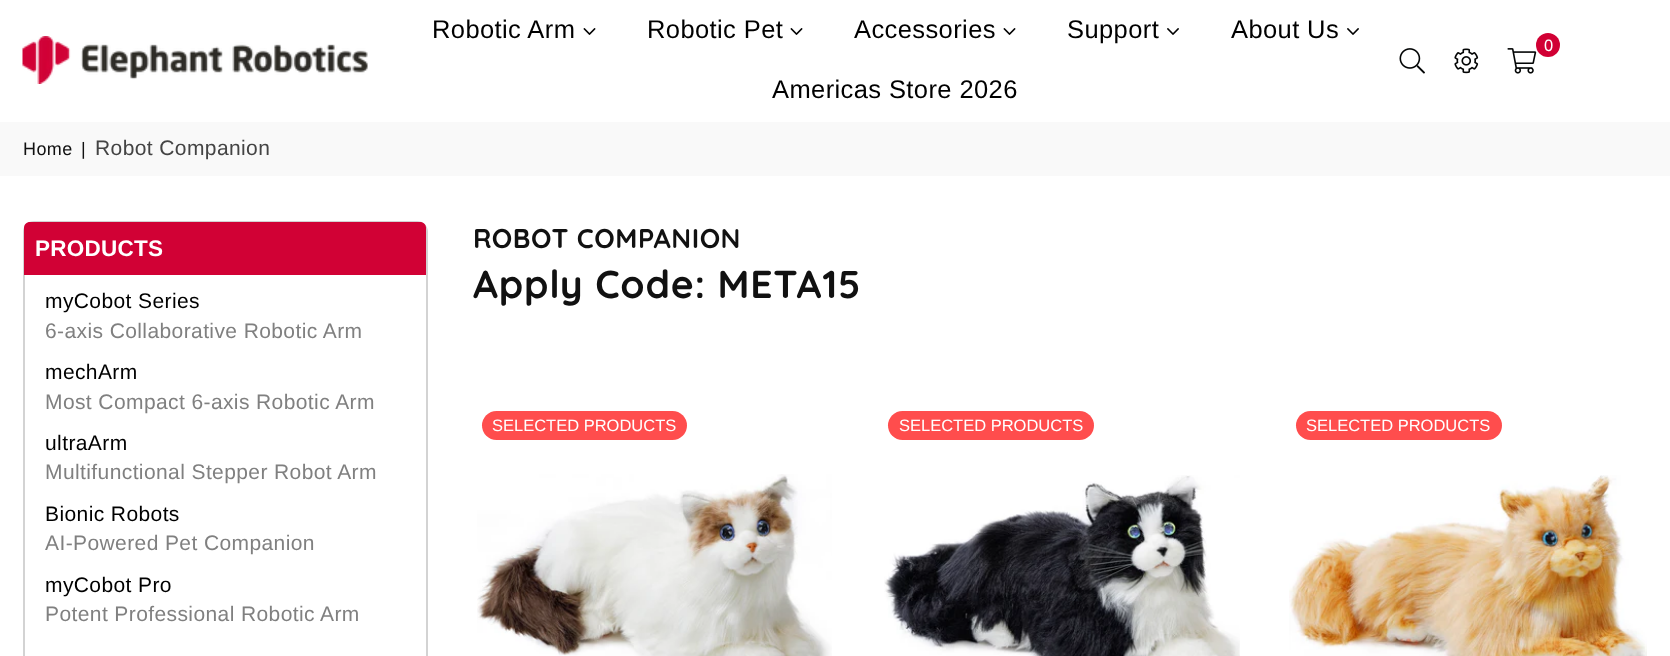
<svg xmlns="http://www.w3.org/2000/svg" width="1670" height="656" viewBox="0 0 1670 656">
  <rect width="100%" height="100%" fill="#ffffff"/>
  <image x="22" y="36" width="346" height="48" href="img1.png"/>
  <text x="432" y="38" font-family="Liberation Sans" font-size="25.5" letter-spacing="0.4" fill="#000000">Robotic Arm</text>
  <image x="583" y="28" width="13" height="7" href="img2.png"/>
  <text x="647" y="38" font-family="Liberation Sans" font-size="25.5" letter-spacing="0.4" fill="#000000">Robotic Pet</text>
  <image x="790" y="28" width="13" height="7" href="img2.png"/>
  <text x="854" y="38" font-family="Liberation Sans" font-size="25.5" letter-spacing="0.4" fill="#000000">Accessories</text>
  <image x="1003" y="28" width="13" height="7" href="img2.png"/>
  <text x="1067" y="38" font-family="Liberation Sans" font-size="25.5" letter-spacing="0.4" fill="#000000">Support</text>
  <image x="1167" y="28" width="12" height="7" href="img3.png"/>
  <text x="1231" y="38" font-family="Liberation Sans" font-size="25.5" letter-spacing="0.4" fill="#000000">About Us</text>
  <image x="1347" y="28" width="12" height="7" href="img3.png"/>
  <text x="772" y="98" font-family="Liberation Sans" font-size="25.5" letter-spacing="0.4" fill="#000000">Americas Store 2026</text>
  <image x="1507" y="48" width="30" height="26" href="img4.png"/>
  <circle cx="1548" cy="45" r="12" fill="#d10034"/>
  <text x="1544" y="51" font-family="Liberation Sans" font-size="16.5" letter-spacing="0.4" fill="#ffffff">0</text>
  <image x="1399" y="48" width="26" height="26" href="img5.png"/>
  <image x="1454" y="48" width="25" height="26" href="img6.png"/>
  <rect x="0" y="122" width="1670" height="54" fill="#f9f9f9"/>
  <text x="23" y="155" font-family="Liberation Sans" font-size="18" letter-spacing="0.4" fill="#111111">Home</text>
  <text x="81" y="155" font-family="Liberation Sans" font-size="18" letter-spacing="0.4" fill="#111111">|</text>
  <text x="95" y="155" font-family="Liberation Sans" font-size="21" letter-spacing="0.4" fill="#444444">Robot Companion</text>
  <text x="473" y="298" font-family="Quicksand" font-size="39" font-weight="bold" letter-spacing="0.75" fill="#111111">Apply Code: META15</text>
  <rect x="472" y="295" width="1" height="2" fill="#ffffff"/>
  <rect x="24" y="222" width="403" height="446" rx="10" fill="none" stroke="#d3d3d3" stroke-width="2"/>
  <path d="M30 222H420C423.5 222 426 224.5 426 228V275H24V228C24 224.5 26.5 222 30 222Z" fill="#d10135"/>
  <text x="35" y="256" font-family="Liberation Sans" font-size="22.5" font-weight="bold" letter-spacing="0.25" fill="#ffffff">PRODUCTS</text>
  <text x="45" y="308" font-family="Liberation Sans" font-size="21" letter-spacing="0.4" fill="#000000">myCobot Series</text>
  <text x="45" y="338" font-family="Liberation Sans" font-size="21" letter-spacing="0.4" fill="#808080">6-axis Collaborative Robotic Arm</text>
  <text x="45" y="379" font-family="Liberation Sans" font-size="21" letter-spacing="0.4" fill="#000000">mechArm</text>
  <text x="45" y="409" font-family="Liberation Sans" font-size="21" letter-spacing="0.4" fill="#808080">Most Compact 6-axis Robotic Arm</text>
  <text x="45" y="450" font-family="Liberation Sans" font-size="21" letter-spacing="0.4" fill="#000000">ultraArm</text>
  <text x="45" y="479" font-family="Liberation Sans" font-size="21" letter-spacing="0.4" fill="#808080">Multifunctional Stepper Robot Arm</text>
  <text x="45" y="521" font-family="Liberation Sans" font-size="21" letter-spacing="0.4" fill="#000000">Bionic Robots</text>
  <text x="45" y="550" font-family="Liberation Sans" font-size="21" letter-spacing="0.4" fill="#808080">AI-Powered Pet Companion</text>
  <text x="45" y="592" font-family="Liberation Sans" font-size="21" letter-spacing="0.4" fill="#000000">myCobot Pro</text>
  <text x="45" y="621" font-family="Liberation Sans" font-size="21" letter-spacing="0.4" fill="#808080">Potent Professional Robotic Arm</text>
  <text x="473" y="248" font-family="Quicksand" font-size="27" font-weight="bold" letter-spacing="0.5" fill="#111111">ROBOT COMPANION</text>
  <rect x="482" y="411" width="205" height="29" rx="14.5" fill="#ff4d4d"/>
  <text x="492" y="431" font-family="Liberation Sans" font-size="16.5" fill="#ffffff">SELECTED PRODUCTS</text>
  <image x="477" y="474" width="355" height="182" href="img7.png"/>
  <rect x="888" y="411" width="206" height="29" rx="14.5" fill="#ff4d4d"/>
  <text x="899" y="431" font-family="Liberation Sans" font-size="16.5" fill="#ffffff">SELECTED PRODUCTS</text>
  <image x="884" y="475" width="356" height="181" href="img8.png"/>
  <rect x="1296" y="411" width="206" height="29" rx="14.5" fill="#ff4d4d"/>
  <text x="1306" y="431" font-family="Liberation Sans" font-size="16.5" fill="#ffffff">SELECTED PRODUCTS</text>
  <image x="1289" y="475" width="358" height="181" href="img9.png"/>
</svg>
